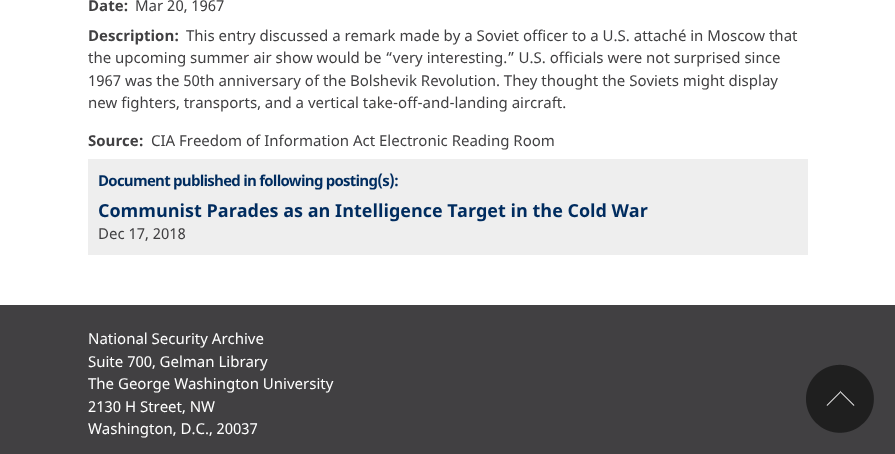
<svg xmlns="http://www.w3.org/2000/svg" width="895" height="454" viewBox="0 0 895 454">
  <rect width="100%" height="100%" fill="#ffffff"/>
  <text x="88" y="11" font-family="Noto Sans" font-size="15" font-weight="bold" fill="#414042">Date:</text>
  <text x="135" y="11" font-family="Noto Sans" font-size="15" fill="#414042">Mar 20, 1967</text>
  <text x="186" y="41" font-family="Noto Sans" font-size="15" fill="#414042">This entry discussed a remark made by a Soviet officer to a U.S. attaché in Moscow that</text>
  <text x="88" y="63" font-family="Noto Sans" font-size="15" fill="#414042">the upcoming summer air show would be “very interesting.” U.S. officials were not surprised since</text>
  <text x="88" y="86" font-family="Noto Sans" font-size="15" fill="#414042">1967 was the 50th anniversary of the Bolshevik Revolution. They thought the Soviets might display</text>
  <text x="88" y="108" font-family="Noto Sans" font-size="15" fill="#414042">new fighters, transports, and a vertical take-off-and-landing aircraft.</text>
  <text x="88" y="41" font-family="Noto Sans" font-size="15" font-weight="bold" fill="#414042">Description:</text>
  <text x="88" y="146" font-family="Noto Sans" font-size="15" font-weight="bold" fill="#414042">Source:</text>
  <text x="151" y="146" font-family="Noto Sans" font-size="15" fill="#414042">CIA Freedom of Information Act Electronic Reading Room</text>
  <rect x="88" y="159" width="720" height="96" fill="#eeeeee"/>
  <text x="98" y="186" font-family="Noto Sans" font-size="15" font-weight="bold" letter-spacing="-0.75" fill="#002c5f">Document published in following posting(s):</text>
  <text x="98" y="217" font-family="Noto Sans" font-size="18" font-weight="bold" fill="#002c5f">Communist Parades as an Intelligence Target in the Cold War</text>
  <text x="98" y="239" font-family="Noto Sans" font-size="15" fill="#414042">Dec 17, 2018</text>
  <rect x="0" y="305" width="895" height="149" fill="#414042"/>
  <text x="88" y="344" font-family="Noto Sans" font-size="15" fill="#ffffff">National Security Archive</text>
  <text x="88" y="367" font-family="Noto Sans" font-size="15" fill="#ffffff">Suite 700, Gelman Library</text>
  <text x="88" y="389" font-family="Noto Sans" font-size="15" fill="#ffffff">The George Washington University</text>
  <text x="88" y="412" font-family="Noto Sans" font-size="15" fill="#ffffff">2130 H Street, NW</text>
  <text x="88" y="434" font-family="Noto Sans" font-size="15" fill="#ffffff">Washington, D.C., 20037</text>
  <image x="806" y="364" width="68" height="69" href="img1.png"/>
</svg>
